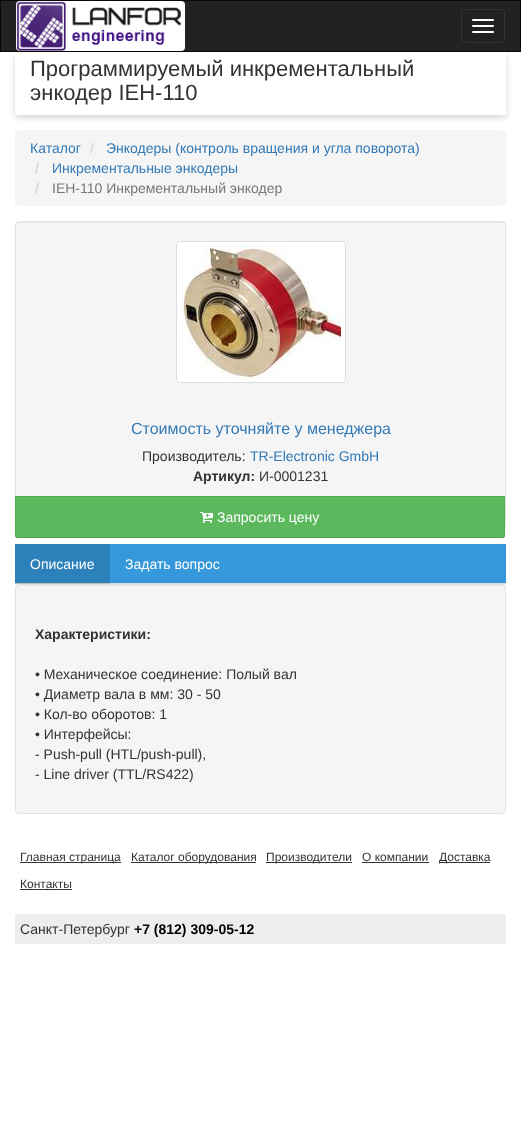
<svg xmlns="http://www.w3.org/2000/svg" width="521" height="1129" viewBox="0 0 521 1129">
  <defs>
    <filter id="blur1" x="-50%" y="-200%" width="200%" height="500%"><feGaussianBlur stdDeviation="3"/></filter>
  </defs>
  <rect width="100%" height="100%" fill="#ffffff"/>
  <rect x="15" y="55" width="491" height="63" rx="2" fill="#000000" fill-opacity="0.16" filter="url(#blur1)"/>
  <rect x="0.5" y="0.5" width="520" height="51" fill="#222222" stroke="#080808"/>
  <image x="16" y="1" width="169" height="50" href="img1.png"/>
  <rect x="461.5" y="9.5" width="43" height="33" rx="3.5" fill="none" stroke="#333333"/>
  <rect x="472" y="19" width="22" height="2" rx="1" fill="#ffffff"/>
  <rect x="472" y="25" width="22" height="2" rx="1" fill="#ffffff"/>
  <rect x="472" y="31" width="22" height="2" rx="1" fill="#ffffff"/>
  <path d="M15 52H506V113C506 114 505 115 504 115H17C16 115 15 114 15 113Z" fill="#ffffff"/>
  <text x="30" y="76" font-family="Liberation Sans" font-size="22" fill="#333333">Программируемый инкрементальный</text>
  <text x="30" y="100" font-family="Liberation Sans" font-size="22" fill="#333333">энкодер IEH-110</text>
  <rect x="15" y="130" width="491" height="76" rx="4" fill="#f5f5f5"/>
  <text x="30" y="153" font-family="Liberation Sans" font-size="14" fill="#337ab7">Каталог</text>
  <text x="90" y="153" font-family="Liberation Sans" font-size="14" fill="#cccccc">/</text>
  <text x="106" y="153" font-family="Liberation Sans" font-size="14" fill="#337ab7">Энкодеры (контроль вращения и угла поворота)</text>
  <text x="35" y="173" font-family="Liberation Sans" font-size="14" fill="#cccccc">/</text>
  <text x="52" y="173" font-family="Liberation Sans" font-size="14" fill="#337ab7">Инкрементальные энкодеры</text>
  <text x="35" y="193" font-family="Liberation Sans" font-size="14" fill="#cccccc">/</text>
  <text x="52" y="193" font-family="Liberation Sans" font-size="14" fill="#777777">IEH-110 Инкрементальный энкодер</text>
  <rect x="15" y="221" width="491" height="308" rx="4" fill="#f5f5f5"/>
  <path d="M19 223H502C504 223 505 224 505 226V225C505 223 504 222 502 222H19C17 222 16 223 16 225V226C16 224 17 223 19 223Z" fill="#e9e9e9"/>
  <rect x="15.5" y="221.5" width="490" height="307" rx="3.5" fill="none" stroke="#e3e3e3"/>
  <rect x="176.5" y="241.5" width="169" height="141" rx="3.5" fill="#ffffff" stroke="#dddddd"/>
  <image x="181" y="246" width="160" height="132" href="img2.png"/>
  <text x="131" y="434" font-family="Liberation Sans" font-size="16" fill="#337ab7">Стоимость уточняйте у менеджера</text>
  <text x="142" y="461" font-family="Liberation Sans" font-size="14" fill="#333333">Производитель:</text>
  <text x="250" y="461" font-family="Liberation Sans" font-size="14" fill="#337ab7">TR-Electronic GmbH</text>
  <text x="193" y="481" font-family="Liberation Sans" font-size="14" font-weight="bold" fill="#333333">Артикул:</text>
  <text x="259" y="481" font-family="Liberation Sans" font-size="14" fill="#333333">И-0001231</text>
  <path d="M15.5 496.5H504.5V536C504.5 537 504 537.5 503 537.5H17C16 537.5 15.5 537 15.5 536Z" fill="#5cb85c" stroke="#4cae4c"/>
  <image x="200" y="512" width="13" height="11" href="img3.png"/>
  <text x="217" y="522" font-family="Liberation Sans" font-size="14" fill="#ffffff">Запросить цену</text>
  <rect x="110" y="544" width="396" height="39" fill="#3598db"/>
  <rect x="109" y="544" width="1" height="40" fill="#2d81ba"/>
  <rect x="15" y="544" width="94" height="39" fill="#2d81ba"/>
  <rect x="110" y="583" width="396" height="1" fill="#dddddd"/>
  <rect x="15" y="583" width="95" height="1" fill="#bcbcbc"/>
  <text x="30" y="569" font-family="Liberation Sans" font-size="14" fill="#ffffff">Описание</text>
  <text x="125" y="569" font-family="Liberation Sans" font-size="14" fill="#ffffff">Задать вопрос</text>
  <rect x="15" y="584" width="491" height="230" rx="4" fill="#f5f5f5"/>
  <path d="M19 586H502C504 586 505 587 505 589V588C505 586 504 585 502 585H19C17 585 16 586 16 588V589C16 587 17 586 19 586Z" fill="#e9e9e9"/>
  <rect x="15.5" y="584.5" width="490" height="229" rx="3.5" fill="none" stroke="#e3e3e3"/>
  <text x="35" y="639" font-family="Liberation Sans" font-size="14" font-weight="bold" fill="#333333">Характеристики:</text>
  <text x="35" y="679" font-family="Liberation Sans" font-size="14" fill="#333333">• Механическое соединение: Полый вал</text>
  <text x="35" y="699" font-family="Liberation Sans" font-size="14" fill="#333333">• Диаметр вала в мм: 30 - 50</text>
  <text x="35" y="719" font-family="Liberation Sans" font-size="14" fill="#333333">• Кол-во оборотов: 1</text>
  <text x="35" y="739" font-family="Liberation Sans" font-size="14" fill="#333333">• Интерфейсы:</text>
  <text x="35" y="759" font-family="Liberation Sans" font-size="14" fill="#333333">- Push-pull (HTL/push-pull),</text>
  <text x="35" y="779" font-family="Liberation Sans" font-size="14" fill="#333333">- Line driver (TTL/RS422)</text>
  <rect x="20" y="862" width="101" height="1" fill="#333333"/>
  <text x="20" y="861" font-family="Liberation Sans" font-size="12" fill="#333333">Главная страница</text>
  <rect x="131" y="862" width="125" height="1" fill="#333333"/>
  <text x="131" y="861" font-family="Liberation Sans" font-size="12" fill="#333333">Каталог оборудования</text>
  <rect x="266" y="862" width="86" height="1" fill="#333333"/>
  <text x="266" y="861" font-family="Liberation Sans" font-size="12" fill="#333333">Производители</text>
  <text x="362" y="861" font-family="Liberation Sans" font-size="12" fill="#333333">О компании</text>
  <rect x="362" y="862" width="67" height="1" fill="#333333"/>
  <rect x="439" y="862" width="51" height="1" fill="#333333"/>
  <text x="439" y="861" font-family="Liberation Sans" font-size="12" fill="#333333">Доставка</text>
  <text x="20" y="888" font-family="Liberation Sans" font-size="12" fill="#333333">Контакты</text>
  <rect x="20" y="889" width="52" height="1" fill="#333333"/>
  <rect x="15" y="914" width="491" height="30" fill="#eeeeee"/>
  <text x="20" y="934" font-family="Liberation Sans" font-size="14" fill="#333333">Санкт-Петербург</text>
  <text x="134" y="934" font-family="Liberation Sans" font-size="14" font-weight="bold" fill="#000000">+7 (812) 309-05-12</text>
</svg>
